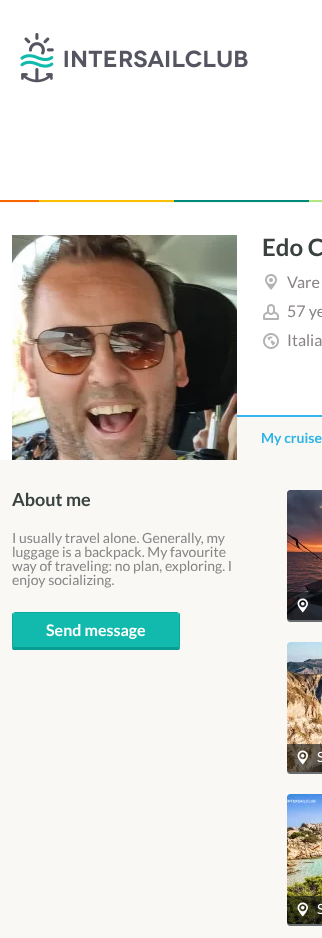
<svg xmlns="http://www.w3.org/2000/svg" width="322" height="938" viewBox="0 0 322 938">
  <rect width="100%" height="100%" fill="#ffffff"/>
  <image x="20" y="33" width="228" height="50" href="img1.png"/>
  <image x="0" y="200" width="322" height="3" href="img2.png"/>
  <image x="12" y="235" width="225" height="225" href="img3.png"/>
  <text x="262" y="256" font-family="Lato" font-size="24" font-weight="bold" fill="#394240">Edo C</text>
  <image x="265" y="274" width="12" height="16" href="img4.png"/>
  <text x="287" y="288" font-family="Lato" font-size="16" fill="#878386">Vare</text>
  <image x="263" y="304" width="16" height="16" href="img5.png"/>
  <text x="287" y="317" font-family="Lato" font-size="16" fill="#878386">57 ye</text>
  <image x="263" y="333" width="16" height="16" href="img6.png"/>
  <text x="287" y="346" font-family="Lato" font-size="16" fill="#878386">Italia</text>
  <rect x="237" y="417" width="85" height="43" fill="#f9f8f4"/>
  <rect x="237" y="415" width="85" height="2" fill="#33b5ef"/>
  <text x="261" y="443" font-family="Lato" font-size="14" font-weight="bold" fill="#2db5e7">My cruise</text>
  <rect x="0" y="460" width="322" height="478" fill="#f9f8f4"/>
  <text x="12" y="506" font-family="Lato" font-size="18" font-weight="bold" fill="#394240">About me</text>
  <text x="12" y="543" font-family="Lato" font-size="14" fill="#878386">I usually travel alone. Generally, my</text>
  <text x="12" y="557" font-family="Lato" font-size="14" fill="#878386">luggage is a backpack. My favourite</text>
  <text x="12" y="571" font-family="Lato" font-size="14" fill="#878386">way of traveling: no plan, exploring. I</text>
  <text x="12" y="585" font-family="Lato" font-size="14" fill="#878386">enjoy socializing.</text>
  <path d="M15 613H177C178 613 179 614 179 615V647H13V615C13 614 14 613 15 613Z" fill="#11baac"/>
  <path d="M15 612L13 613L14 614L15 613H177L178 614L179 613L177 612Z" fill="#0aaa9d"/>
  <path d="M180 647V615C180 614 180 613 179 613L178.5 613.5C179 614 179 614.5 179 615V647L179.5 649Z" fill="#0aaa9d"/>
  <path d="M15 650H177C178 650 179 650 180 649L179 647H13L12 649C13 650 14 650 15 650Z" fill="#079d91"/>
  <path d="M12 615V647L12.5 649L13 647V615C13 614.5 13 614 13.5 613.5L13 613C12 613 12 614 12 615Z" fill="#0aaa9d"/>
  <text x="46" y="636" font-family="Lato" font-size="16" font-weight="bold" fill="#ffffff">Send message</text>
  <rect x="287" y="490" width="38" height="132" rx="3" fill="#ffffff"/>
  <image x="287" y="490" width="35" height="130" href="img7.png"/>
  <path d="M287 592H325V622H290C288.5 622 287 620.5 287 619Z" fill="#070b0d" fill-opacity="0.6"/>
  <image x="297" y="598" width="11" height="15" href="img8.png"/>
  <rect x="287" y="642" width="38" height="132" rx="3" fill="#ffffff"/>
  <image x="287" y="642" width="35" height="130" href="img9.png"/>
  <path d="M287 744H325V774H290C288.5 774 287 772.5 287 771Z" fill="#070b0d" fill-opacity="0.6"/>
  <image x="297" y="750" width="11" height="15" href="img10.png"/>
  <text x="317" y="762" font-family="Lato" font-size="14" fill="#ffffff">S</text>
  <rect x="287" y="794" width="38" height="132" rx="3" fill="#ffffff"/>
  <image x="287" y="794" width="35" height="130" href="img11.png"/>
  <path d="M287 896H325V926H290C288.5 926 287 924.5 287 923Z" fill="#070b0d" fill-opacity="0.6"/>
  <image x="297" y="902" width="11" height="15" href="img12.png"/>
  <text x="317" y="914" font-family="Lato" font-size="14" fill="#ffffff">S</text>
</svg>
